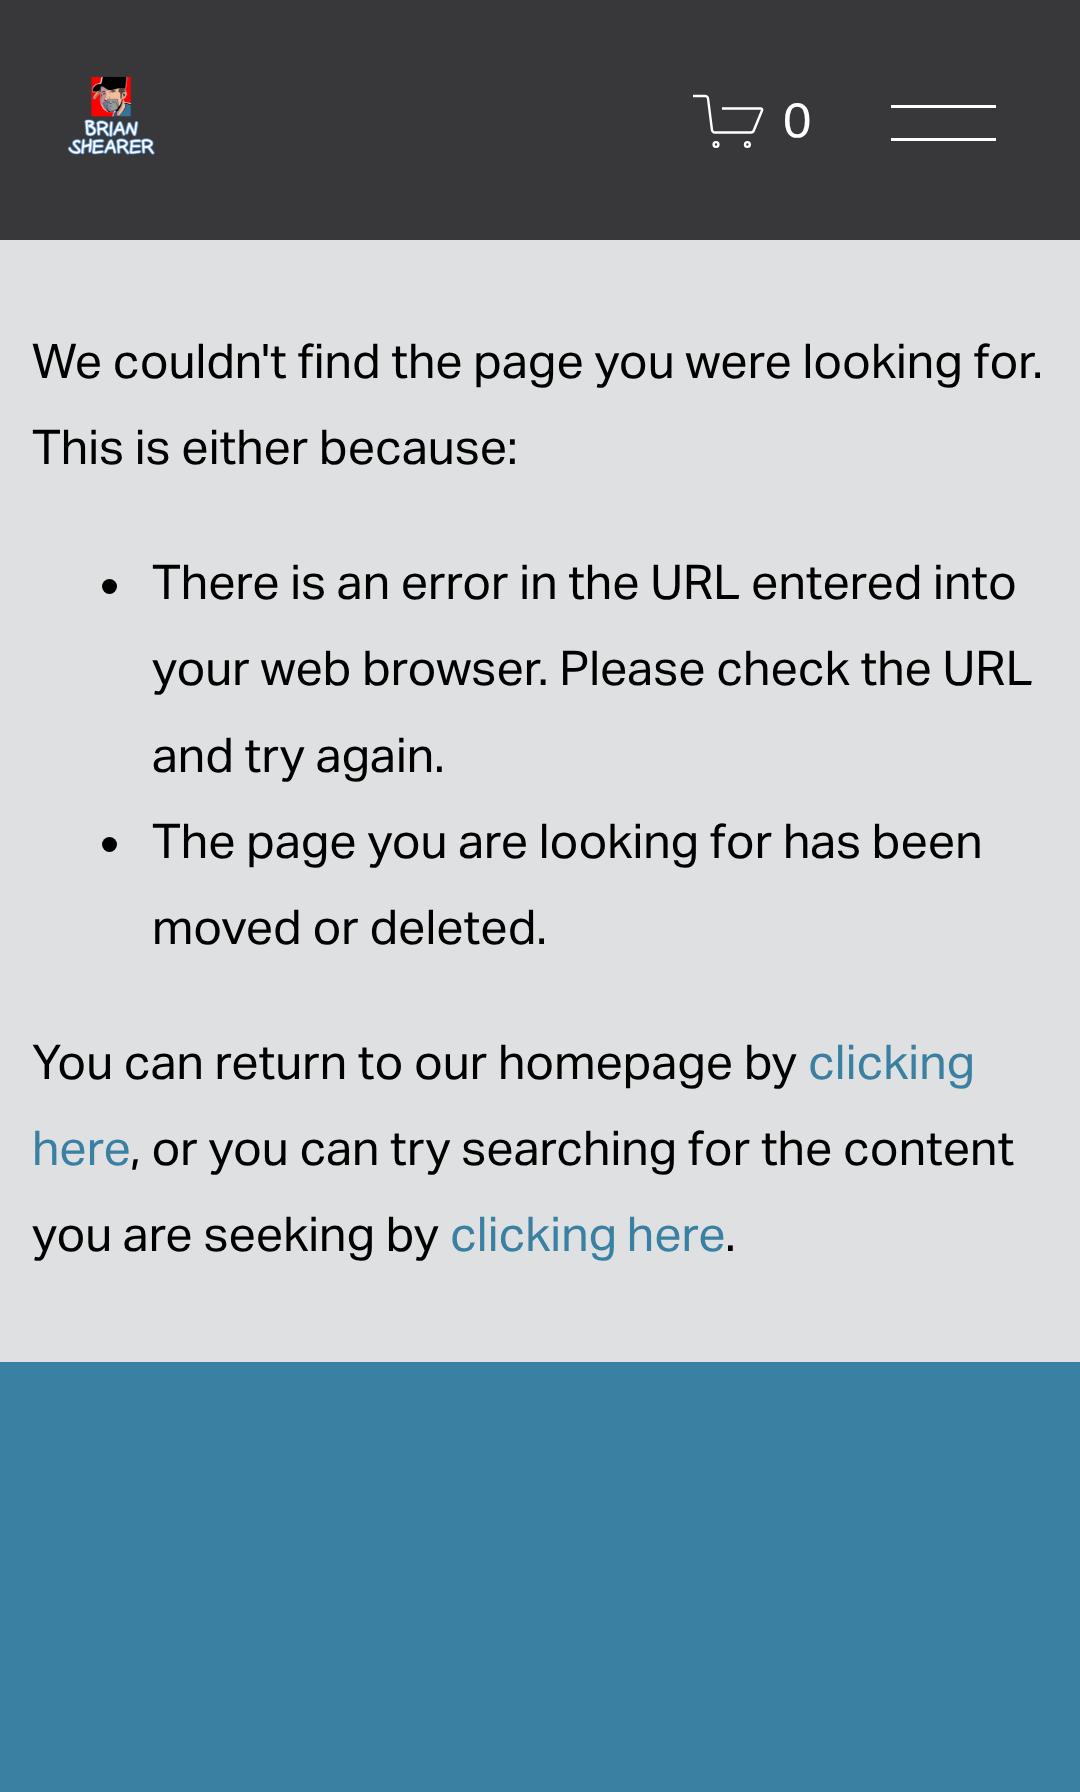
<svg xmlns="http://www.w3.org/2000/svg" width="1080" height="1792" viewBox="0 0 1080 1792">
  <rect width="100%" height="100%" fill="#dfe0e1"/>
  <rect x="0" y="0" width="1080" height="240" fill="#38383b"/>
  <image x="67" y="76" width="88" height="79" href="img1.png"/>
  <circle cx="747.4" cy="144.5" r="2.4" fill="none" stroke="#ffffff" stroke-width="2.4"/>
  <circle cx="716" cy="144.5" r="2.4" fill="none" stroke="#ffffff" stroke-width="2.4"/>
  <path d="M693 96H705C706.5 96 708 97 708 98.5L712 130C712 131 713.5 132.5 714.5 132.5H751C752 132.5 753.5 131.5 754 130L762 110.5C762.5 109.5 762 108.5 760.5 108.5H722" fill="none" stroke="#ffffff" stroke-width="2.4"/>
  <text x="783" y="137" font-family="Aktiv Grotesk" font-size="48" fill="#ffffff">0</text>
  <rect x="891" y="105" width="105" height="3" fill="#ffffff"/>
  <rect x="891" y="138" width="105" height="3" fill="#ffffff"/>
  <text x="32" y="378" font-family="Aktiv Grotesk" font-size="48" fill="#000000">We couldn't find the page you were looking for.</text>
  <text x="32" y="464" font-family="Aktiv Grotesk" font-size="48" fill="#000000">This is either because:</text>
  <circle cx="109.5" cy="586.5" r="7.5" fill="#000000"/>
  <text x="152" y="599" font-family="Aktiv Grotesk" font-size="48" fill="#000000">There is an error in the URL entered into</text>
  <text x="152" y="685" font-family="Aktiv Grotesk" font-size="48" fill="#000000">your web browser. Please check the URL</text>
  <text x="152" y="772" font-family="Aktiv Grotesk" font-size="48" fill="#000000">and try again.</text>
  <circle cx="109.5" cy="844.5" r="7.5" fill="#000000"/>
  <text x="152" y="858" font-family="Aktiv Grotesk" font-size="48" fill="#000000">The page you are looking for has been</text>
  <text x="152" y="944" font-family="Aktiv Grotesk" font-size="48" fill="#000000">moved or deleted.</text>
  <text x="32" y="1079" font-family="Aktiv Grotesk" font-size="48" fill="#000000">You can return to our homepage by</text>
  <text x="808" y="1079" font-family="Aktiv Grotesk" font-size="48" fill="#3a80a2">clicking</text>
  <text x="32" y="1165" font-family="Aktiv Grotesk" font-size="48" fill="#3a80a2">here</text>
  <text x="130" y="1165" font-family="Aktiv Grotesk" font-size="48" fill="#000000">, or you can try searching for the content</text>
  <text x="32" y="1251" font-family="Aktiv Grotesk" font-size="48" fill="#000000">you are seeking by</text>
  <text x="450" y="1251" word-spacing="-1" font-family="Aktiv Grotesk" font-size="48" fill="#3a80a2">clicking here</text>
  <text x="725" y="1251" font-family="Aktiv Grotesk" font-size="48" fill="#000000">.</text>
  <rect x="0" y="1362" width="1080" height="430" fill="#3a80a2"/>
</svg>
